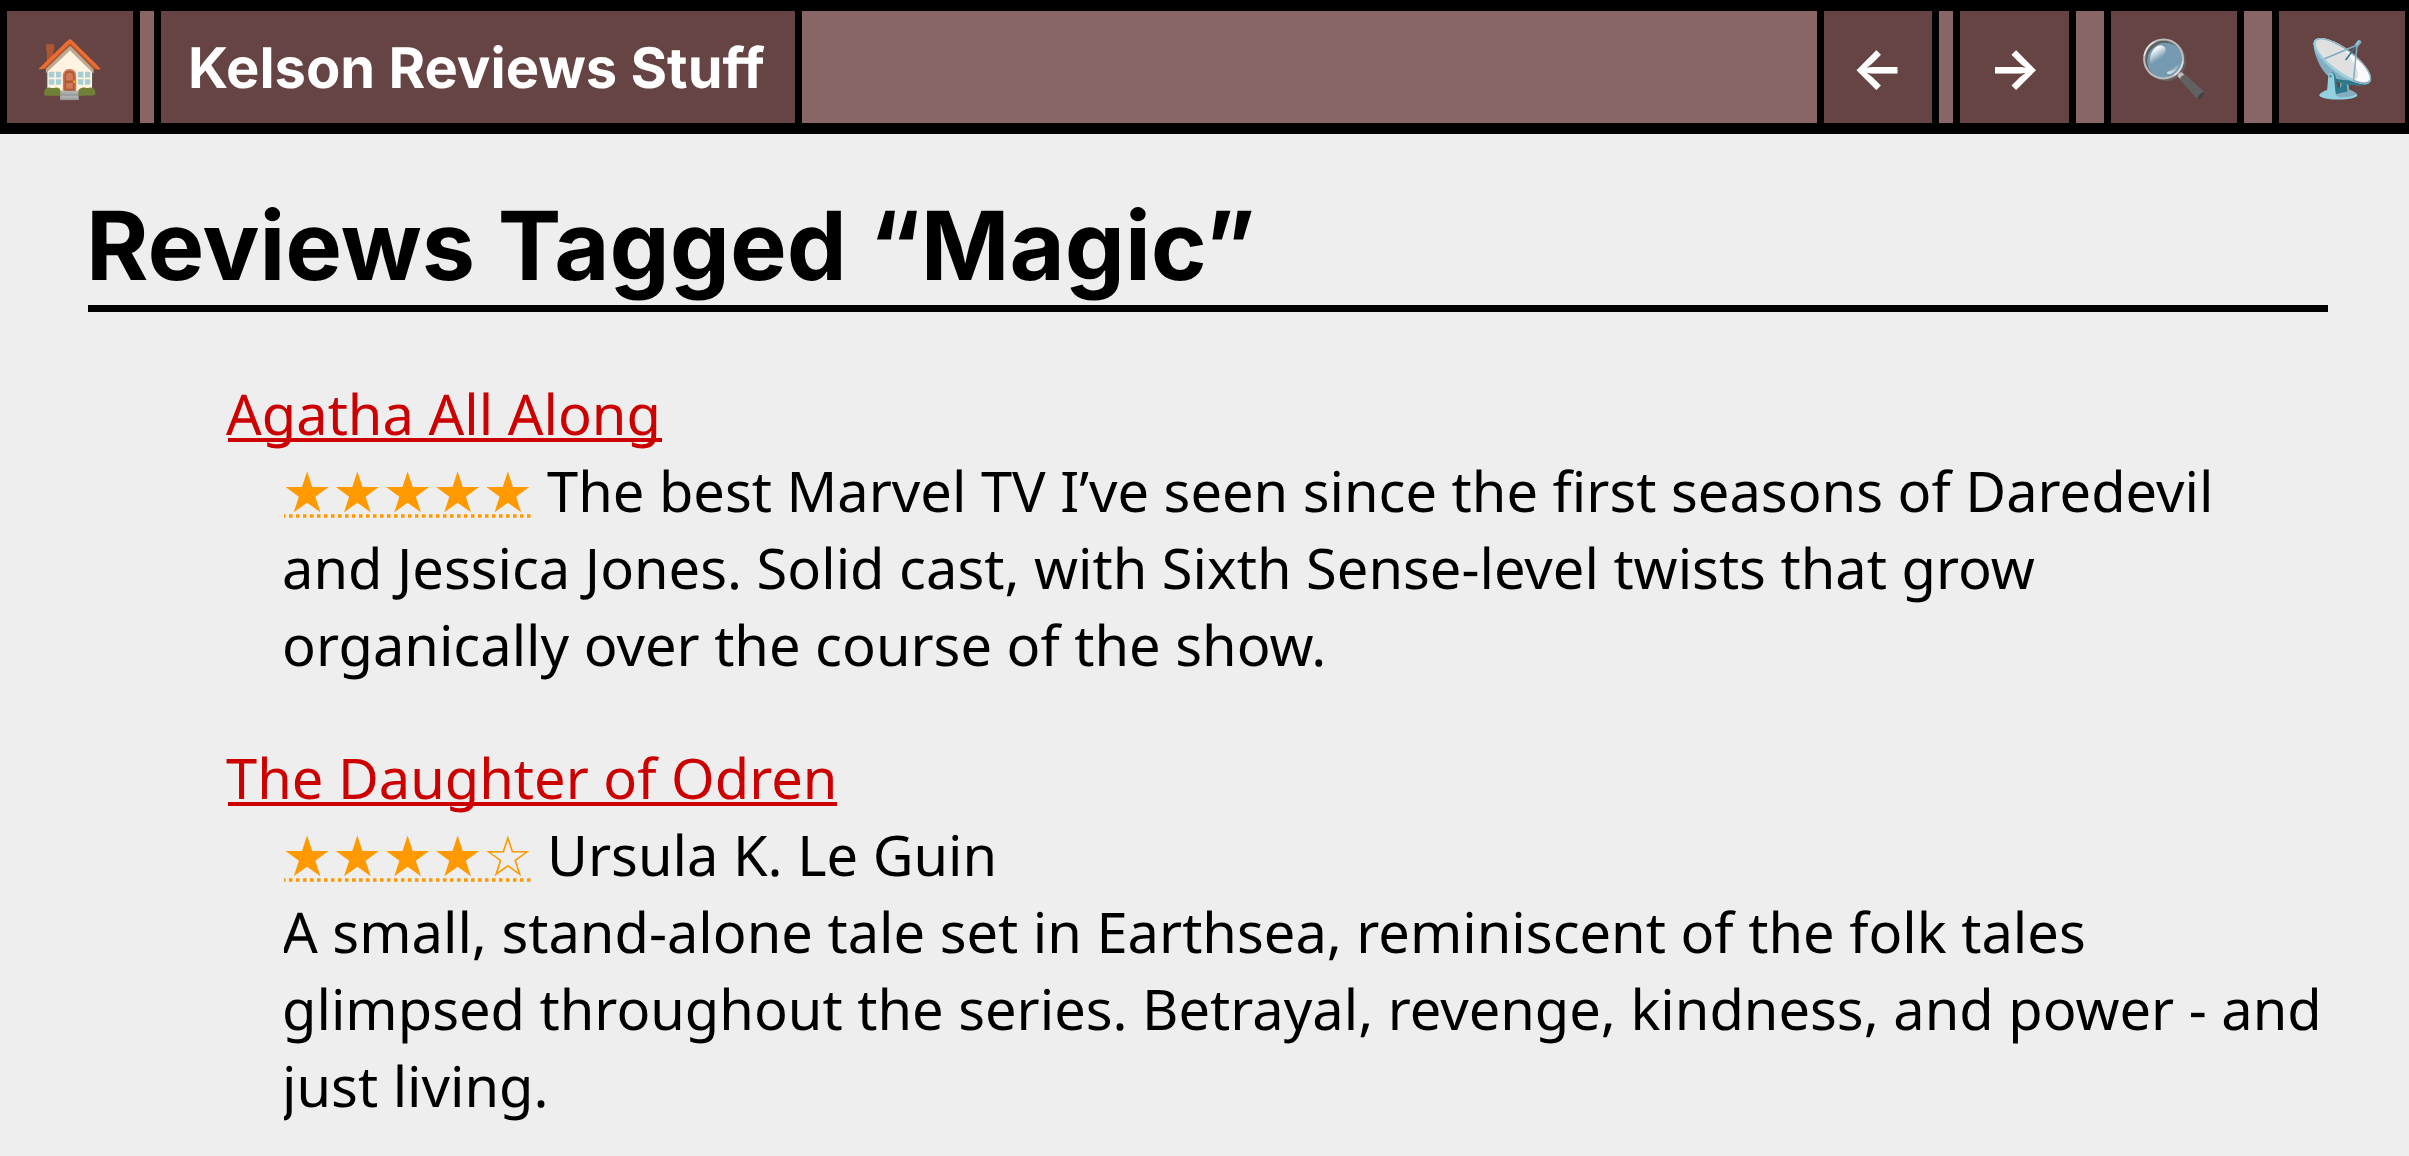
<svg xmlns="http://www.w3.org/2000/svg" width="2409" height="1156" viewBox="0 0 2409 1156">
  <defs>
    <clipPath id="clip1"><rect x="284" y="452" width="2044" height="231"/></clipPath>
    <clipPath id="clip2"><rect x="284" y="816" width="2044" height="308"/></clipPath>
  </defs>
  <rect width="100%" height="100%" fill="#eeeeee"/>
  <rect x="140" y="11" width="2132" height="112" fill="#886666"/>
  <rect x="0" y="0" width="2409" height="11" fill="#000000"/>
  <rect x="0" y="123" width="2409" height="11" fill="#000000"/>
  <rect x="7" y="11" width="126" height="112" fill="#664444"/>
  <rect x="133" y="11" width="7" height="112" fill="#000000"/>
  <rect x="0" y="11" width="7" height="112" fill="#000000"/>
  <text x="35" y="88" font-family="Noto Color Emoji" font-size="56" font-weight="bold" fill="#ffffff">🏠</text>
  <rect x="161" y="11" width="634" height="112" fill="#664444"/>
  <rect x="795" y="11" width="7" height="112" fill="#000000"/>
  <rect x="154" y="11" width="7" height="112" fill="#000000"/>
  <text x="188" y="88" font-family="Inter" font-size="56" font-weight="bold" fill="#ffffff">Kelson Reviews Stuff</text>
  <rect x="1824" y="11" width="108" height="112" fill="#664444"/>
  <rect x="1932" y="11" width="7" height="112" fill="#000000"/>
  <rect x="1817" y="11" width="7" height="112" fill="#000000"/>
  <text x="1851" y="88" font-family="Inter" font-size="56" font-weight="bold" fill="#ffffff">←</text>
  <rect x="1960" y="11" width="109" height="112" fill="#664444"/>
  <rect x="2069" y="11" width="7" height="112" fill="#000000"/>
  <rect x="1953" y="11" width="7" height="112" fill="#000000"/>
  <text x="1988" y="88" font-family="Inter" font-size="56" font-weight="bold" fill="#ffffff">→</text>
  <rect x="2111" y="11" width="126" height="112" fill="#664444"/>
  <rect x="2237" y="11" width="7" height="112" fill="#000000"/>
  <rect x="2104" y="11" width="7" height="112" fill="#000000"/>
  <text x="2139" y="88" font-family="Noto Color Emoji" font-size="56" font-weight="bold" fill="#ffffff">🔍</text>
  <rect x="2279" y="11" width="126" height="112" fill="#664444"/>
  <rect x="2405" y="11" width="4" height="112" fill="#000000"/>
  <rect x="2272" y="11" width="7" height="112" fill="#000000"/>
  <text x="2307" y="88" font-family="Noto Color Emoji" font-size="56" font-weight="bold" fill="#ffffff">📡</text>
  <rect x="88" y="305" width="2240" height="7" fill="#000000"/>
  <text x="86" y="280" font-family="Inter" font-size="95.25" font-weight="bold" fill="#000000">Reviews Tagged “Magic”</text>
  <rect x="228" y="438" width="434" height="4" fill="#cc0000"/>
  <text x="226" y="435" font-family="Noto Sans" font-size="56" fill="#cc0000">Agatha All Along</text>
  <text x="282" y="512" font-family="DejaVu Sans" font-size="56" fill="#ff9900">★★★★★</text>
  <g clip-path="url(#clip1)">
    <path d="M282 516H533" fill="none" stroke="#ff9900" stroke-width="3.5" stroke-dasharray="3.5 3.5"/>
  </g>
  <text x="547" y="512" font-family="Noto Sans" font-size="56" fill="#000000">The best Marvel TV I’ve seen since the first seasons of Daredevil</text>
  <text x="282" y="589" font-family="Noto Sans" font-size="56" fill="#000000">and Jessica Jones. Solid cast, with Sixth Sense-level twists that grow</text>
  <text x="282" y="666" font-family="Noto Sans" font-size="56" fill="#000000">organically over the course of the show.</text>
  <rect x="228" y="802" width="609" height="4" fill="#cc0000"/>
  <text x="226" y="799" font-family="Noto Sans" font-size="56" fill="#cc0000">The Daughter of Odren</text>
  <text x="282" y="876" font-family="DejaVu Sans" font-size="56" fill="#ff9900">★★★★☆</text>
  <g clip-path="url(#clip2)">
    <path d="M282 880H533" fill="none" stroke="#ff9900" stroke-width="3.5" stroke-dasharray="3.5 3.5"/>
  </g>
  <text x="547" y="876" font-family="Noto Sans" font-size="56" fill="#000000">Ursula K. Le Guin</text>
  <g clip-path="url(#clip2)">
    <text x="282" y="953" font-family="Noto Sans" font-size="56" fill="#000000">A small, stand-alone tale set in Earthsea, reminiscent of the folk tales</text>
  </g>
  <text x="282" y="1030" font-family="Noto Sans" font-size="56" fill="#000000">glimpsed throughout the series. Betrayal, revenge, kindness, and power - and</text>
  <g clip-path="url(#clip2)">
    <text x="282" y="1107" font-family="Noto Sans" font-size="56" fill="#000000">just living.</text>
  </g>
</svg>
